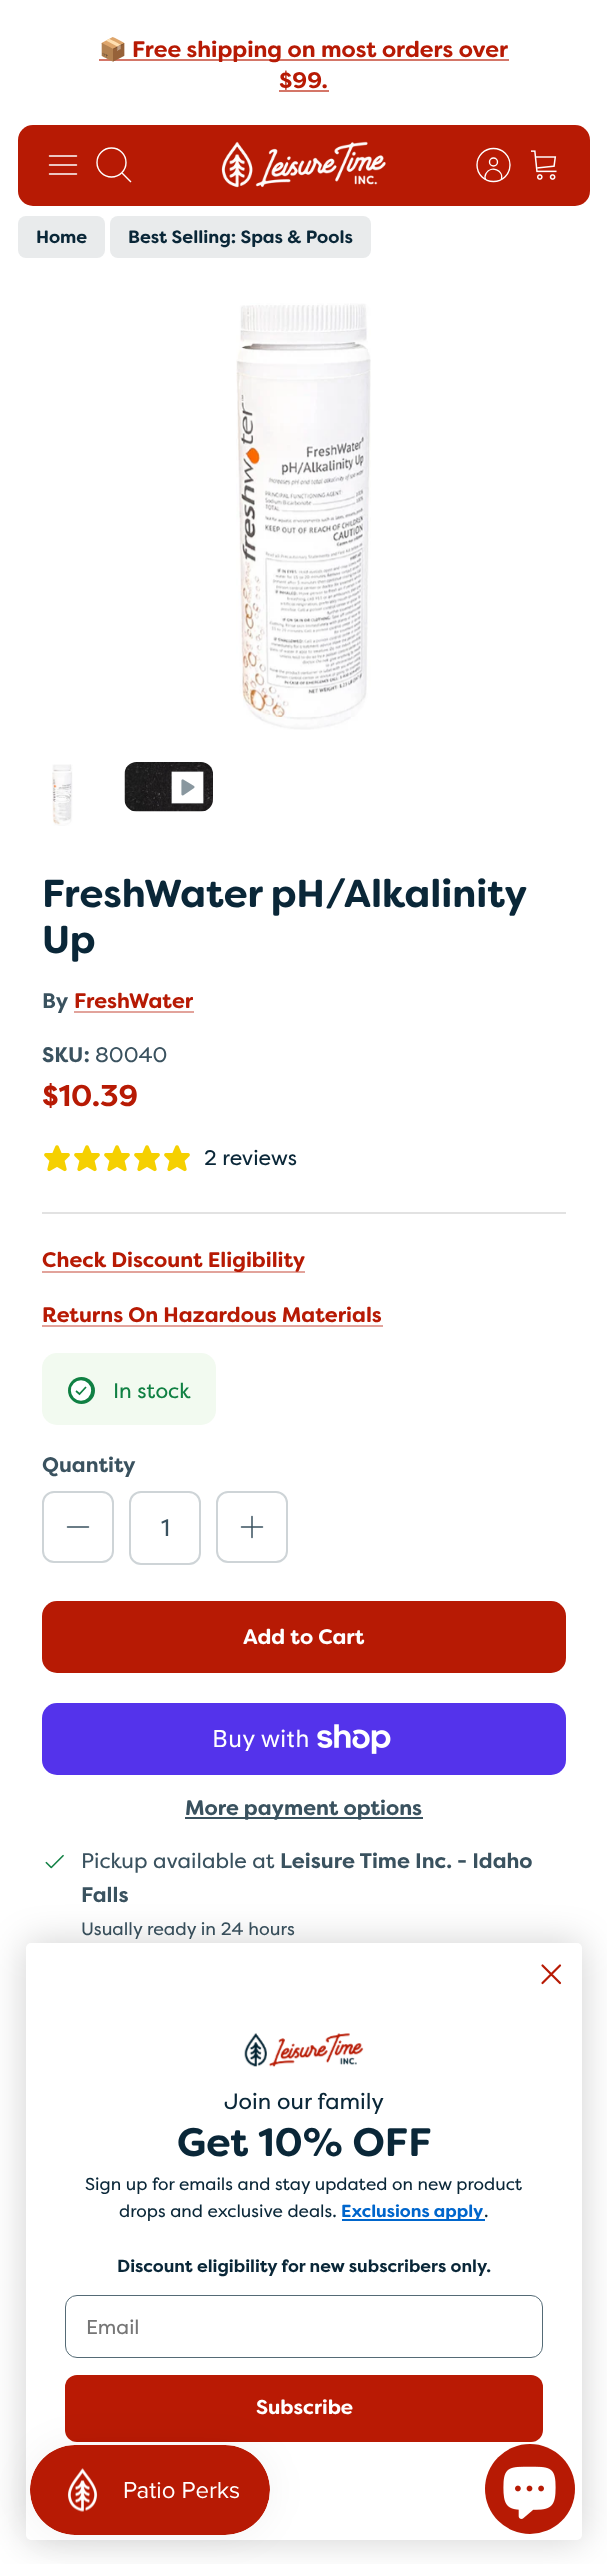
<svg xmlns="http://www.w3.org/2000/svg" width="607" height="2564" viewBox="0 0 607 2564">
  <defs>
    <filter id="blur1" x="-50%" y="-200%" width="200%" height="500%"><feGaussianBlur stdDeviation="18.5"/></filter>
    <filter id="blur2" x="-50%" y="-200%" width="200%" height="500%"><feGaussianBlur stdDeviation="19"/></filter>
  </defs>
  <rect width="100%" height="100%" fill="#ffffff"/>
  <rect x="99" y="59" width="410" height="2" fill="#d47668"/>
  <text x="99" y="57" font-family="Noto Color Emoji" font-size="22.5" font-weight="bold" fill="#b71a04">📦</text>
  <text x="132" y="57" font-family="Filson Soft" font-size="22.5" font-weight="bold" fill="#b71a04">Free shipping on most orders over</text>
  <text x="279" y="88" font-family="Filson Soft" font-size="22.5" font-weight="bold" fill="#b71a04">$99.</text>
  <rect x="279" y="90" width="50" height="2" fill="#d47668"/>
  <rect x="18" y="125" width="572" height="81" rx="15" fill="#b71a04"/>
  <path d="M49.5 165H76.5M49.5 156H76.5M49.5 174H76.5" fill="none" stroke="#ffffff" stroke-width="1.5" stroke-linecap="round" stroke-linejoin="round"/>
  <circle cx="111.5" cy="162.5" r="14.5" fill="none" stroke="#ffffff" stroke-width="1.4"/>
  <path d="M122.5 173.5L130.5 181.5" fill="none" stroke="#ffffff" stroke-width="1.4" stroke-linecap="square"/>
  <image x="221" y="141" width="165" height="47" href="img1.png"/>
  <path d="M501.5 179.5C504 170.5 491 165 486 173.5C485 175.5 484.5 177.5 485.5 179.5" fill="none" stroke="#ffffff" stroke-width="1.4"/>
  <circle cx="493.5" cy="162" r="4" fill="none" stroke="#ffffff" stroke-width="1.4"/>
  <circle cx="493.5" cy="165" r="16.5" fill="none" stroke="#ffffff" stroke-width="1.4"/>
  <image x="531" y="150" width="26" height="30" href="img2.png"/>
  <rect x="18" y="216" width="87" height="42" rx="8" fill="#e9ebec"/>
  <text x="36" y="243" font-family="Filson Soft" font-size="17.8" font-weight="bold" fill="#0a2738">Home</text>
  <rect x="110" y="216" width="261" height="42" rx="8" fill="#e9ebec"/>
  <text x="128" y="243" font-family="Filson Soft" font-size="17.8" font-weight="bold" fill="#0a2738">Best Selling: Spas &amp; Pools</text>
  <image x="236" y="303" width="135" height="427" href="img3.png"/>
  <image x="52" y="764" width="21" height="62" href="img4.png"/>
  <image x="124" y="762" width="89" height="50" href="img5.png"/>
  <image x="171" y="771" width="33" height="33" href="img6.png"/>
  <text x="42" y="907" word-spacing="-1" font-family="Filson Soft" font-size="39" font-weight="bold" fill="#0a2738">FreshWater pH/Alkalinity</text>
  <text x="42" y="953" font-family="Filson Soft" font-size="39" font-weight="bold" fill="#0a2738">Up</text>
  <text x="42" y="1008" font-family="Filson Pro" font-size="21" font-weight="bold" fill="#3a525f">By</text>
  <text x="74" y="1008" font-family="Filson Soft" font-size="21" font-weight="bold" fill="#b71a04">FreshWater</text>
  <rect x="74" y="1011" width="120" height="2" fill="#e2a39b"/>
  <text x="42" y="1062" font-family="Filson Pro" font-size="21" font-weight="bold" fill="#3a525f">SKU:</text>
  <text x="95" y="1062" font-family="Filson Pro" font-size="21" fill="#3a525f">80040</text>
  <text x="42" y="1106" font-family="Filson Pro" font-size="30" font-weight="bold" fill="#b71a04">$10.39</text>
  <image x="44" y="1145" width="26" height="27" href="img7.png"/>
  <image x="74" y="1145" width="26" height="27" href="img7.png"/>
  <image x="104" y="1145" width="26" height="27" href="img7.png"/>
  <image x="134" y="1145" width="26" height="27" href="img7.png"/>
  <image x="164" y="1145" width="26" height="27" href="img7.png"/>
  <text x="204" y="1165" font-family="Filson Pro" font-size="21" fill="#0a2738">2 reviews</text>
  <rect x="42" y="1212" width="524" height="2" fill="#e2e2e2"/>
  <rect x="42" y="1271" width="263" height="2" fill="#e2a39b"/>
  <text x="42" y="1267" font-family="Filson Soft" font-size="21" font-weight="bold" fill="#b71a04">Check Discount Eligibility</text>
  <text x="42" y="1322" font-family="Filson Soft" font-size="21" font-weight="bold" fill="#b71a04">Returns On Hazardous Materials</text>
  <rect x="42" y="1325" width="341" height="2" fill="#e2a39b"/>
  <rect x="42" y="1353" width="174" height="72" rx="15" fill="#f2faf0"/>
  <circle cx="81.5" cy="1390.5" r="13.5" fill="#108043"/>
  <circle cx="81" cy="1390.5" r="11" fill="#ffffff" stroke="#108043" stroke-width="1.7"/>
  <path d="M86 1387L79.5 1394L76 1391" fill="none" stroke="#108043" stroke-width="1.7"/>
  <text x="113" y="1398" font-family="Filson Pro" font-size="21" fill="#108043">In stock</text>
  <text x="42" y="1472" font-family="Filson Pro" font-size="21" font-weight="bold" fill="#3a525f">Quantity</text>
  <rect x="43" y="1492" width="70" height="70" rx="11" fill="none" stroke="#ced4d7" stroke-width="2"/>
  <path d="M67.5 1527H88.5" fill="none" stroke="#3a525f" stroke-width="1.5" stroke-linecap="round" stroke-linejoin="round"/>
  <rect x="130" y="1492" width="70" height="72" rx="11" fill="none" stroke="#ced4d7" stroke-width="2"/>
  <text x="161" y="1536" font-family="Filson Pro" font-size="24" fill="#3a525f">1</text>
  <rect x="217" y="1492" width="70" height="70" rx="11" fill="none" stroke="#ced4d7" stroke-width="2"/>
  <path d="M252 1516.5V1537.5M241.5 1527H262.5" fill="none" stroke="#3a525f" stroke-width="1.5" stroke-linecap="round" stroke-linejoin="round"/>
  <rect x="42" y="1601" width="524" height="72" rx="15" fill="#b71a04"/>
  <text x="243" y="1644" font-family="Filson Soft" font-size="21" font-weight="bold" fill="#ffffff">Add to Cart</text>
  <rect x="42" y="1703" width="524" height="72" rx="15" fill="#5433eb"/>
  <text x="212" y="1747" font-family="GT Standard" font-size="24" fill="#ffffff">Buy with</text>
  <image x="317" y="1724" width="74" height="30" href="img8.png"/>
  <rect x="185" y="1817" width="238" height="2" fill="#3a525f"/>
  <text x="185" y="1815" font-family="Filson Soft" font-size="21" font-weight="bold" fill="#3a525f">More payment options</text>
  <image x="45" y="1854" width="19" height="15" href="img9.png"/>
  <text x="81" y="1868" font-family="Filson Pro" font-size="21" fill="#3a525f">Pickup available at</text>
  <text x="280" y="1868" font-family="Filson Pro" font-size="21" font-weight="bold" fill="#3a525f">Leisure Time Inc. - Idaho</text>
  <text x="81" y="1902" font-family="Filson Pro" font-size="21" font-weight="bold" fill="#3a525f">Falls</text>
  <text x="81" y="1935" font-family="Filson Pro" font-size="17.8" fill="#3a525f">Usually ready in 24 hours</text>
  <rect x="26" y="1943" width="556" height="597" rx="5" fill="#000000" fill-opacity="0.19" filter="url(#blur1)"/>
  <rect x="26" y="1943" width="556" height="597" rx="5" fill="#ffffff"/>
  <path d="M542.5 1965.5L560 1983M542.5 1983L560 1965.5Z" fill="none" stroke="#b71a04" stroke-width="2.2" stroke-linecap="round" stroke-linejoin="round"/>
  <image x="244" y="2033" width="120" height="34" href="img10.png"/>
  <text x="224" y="2109" font-family="Filson Pro" font-size="22.25" fill="#0a2738">Join our family</text>
  <text x="177" y="2156" font-family="Filson Soft" font-size="39.75" font-weight="bold" fill="#0a2738">Get 10% OFF</text>
  <text x="85" y="2190" font-family="Filson Pro" font-size="17.35" fill="#0a2738">Sign up for emails and stay updated on new product</text>
  <text x="119" y="2217" font-family="Filson Pro" font-size="17.35" fill="#0a2738">drops and exclusive deals.</text>
  <rect x="342" y="2219" width="143" height="2" fill="#0066cc"/>
  <text x="341" y="2217" font-family="Filson Soft" font-size="17.35" font-weight="bold" fill="#0066cc">Exclusions apply</text>
  <text x="484" y="2217" font-family="Filson Pro" font-size="17.35" fill="#0a2738">.</text>
  <text x="117" y="2272" font-family="Filson Pro" font-size="17.35" font-weight="bold" fill="#0a2738">Discount eligibility for new subscribers only.</text>
  <rect x="65.5" y="2295.5" width="477" height="62" rx="11.5" fill="none" stroke="#556b76"/>
  <text x="86" y="2334" font-family="Filson Pro" font-size="20" fill="#767676">Email</text>
  <rect x="65" y="2375" width="478" height="67" rx="12" fill="#b91a04"/>
  <text x="256" y="2414" font-family="Filson Soft" font-size="20" font-weight="bold" fill="#ffffff">Subscribe</text>
  <rect x="30" y="2445" width="240" height="90" rx="45" fill="#000000" fill-opacity="0.05" filter="url(#blur2)"/>
  <image x="30" y="2445" width="240" height="90" href="img11.png"/>
  <circle cx="530" cy="2489" r="45" fill="#b71a04"/>
  <image x="503" y="2466" width="53" height="53" href="img12.png"/>
</svg>
